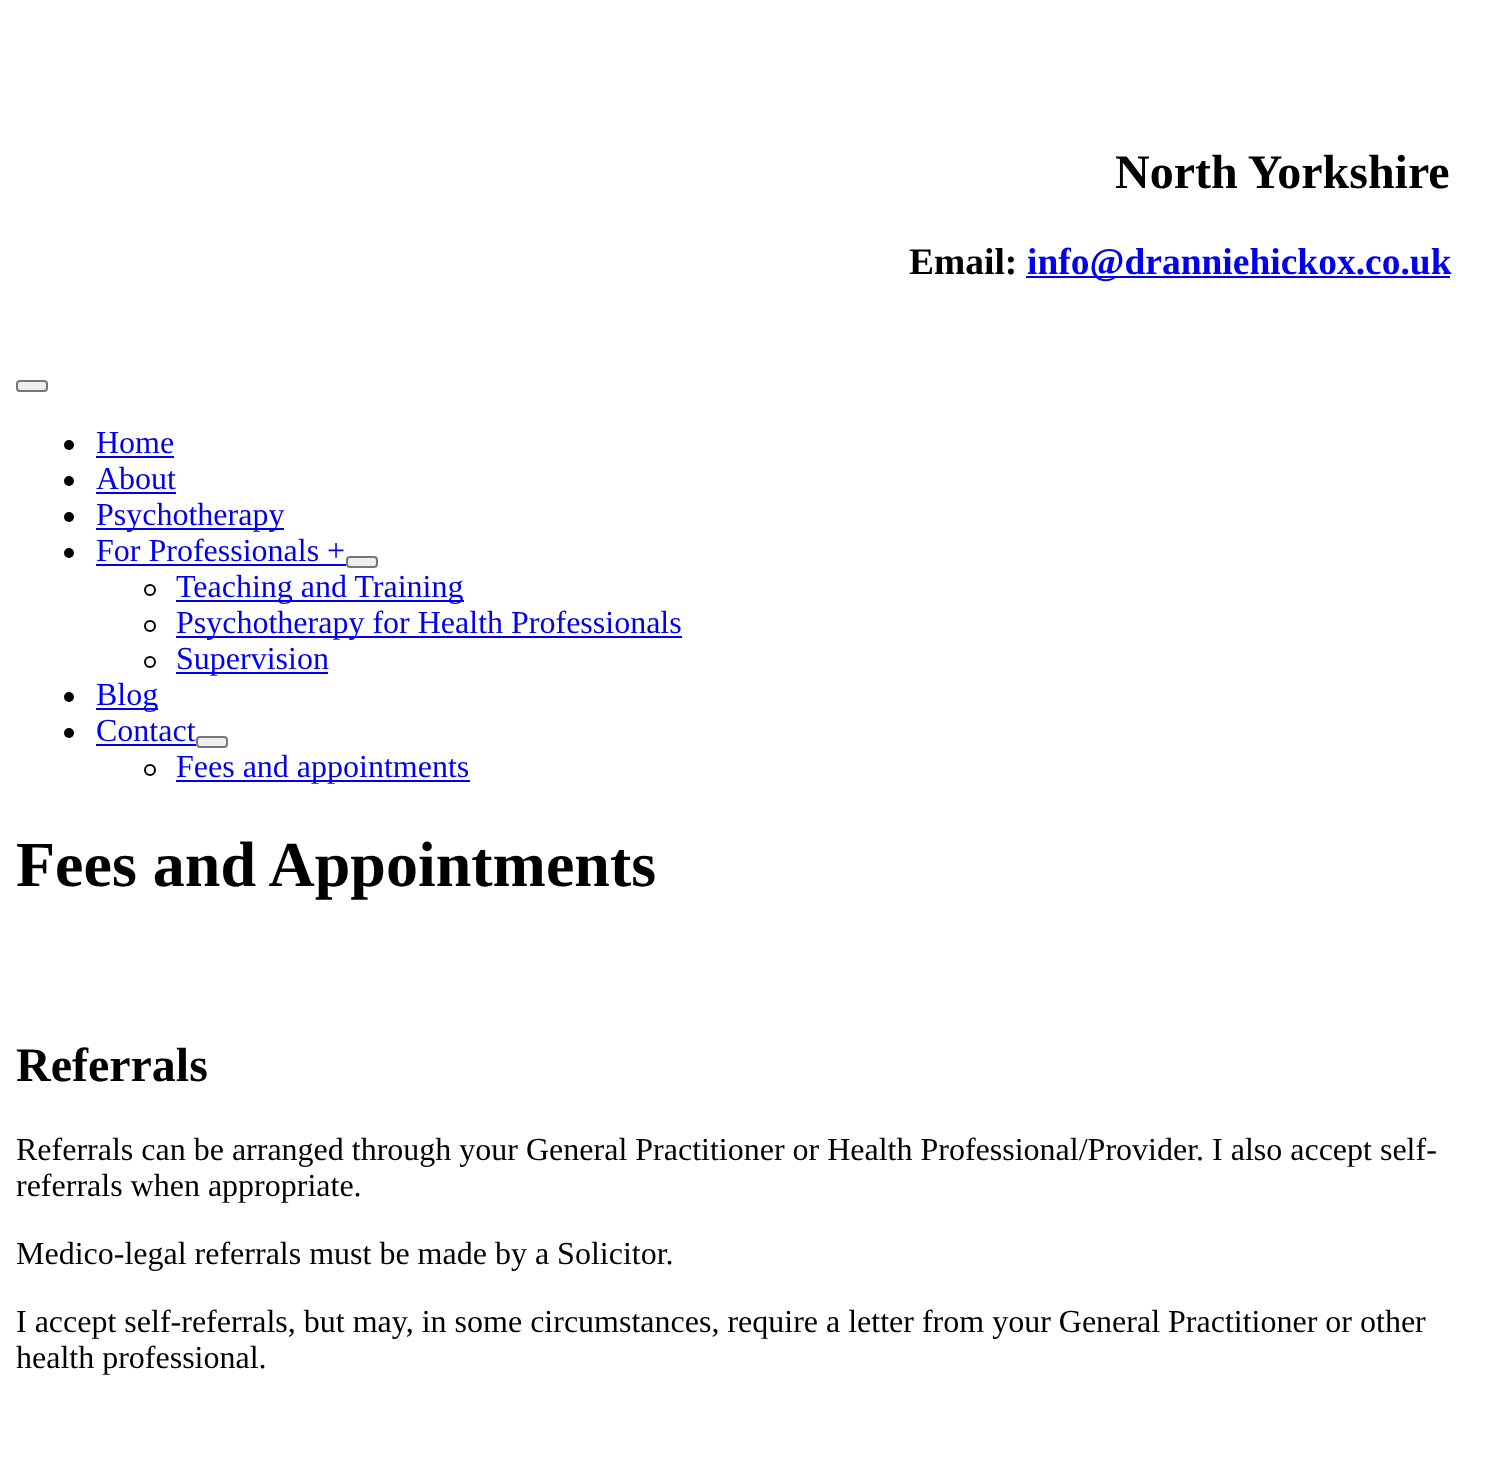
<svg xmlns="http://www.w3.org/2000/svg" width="1506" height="1465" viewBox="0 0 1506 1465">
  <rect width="100%" height="100%" fill="#ffffff"/>
  <text x="1115" y="188" font-family="Liberation Serif" font-size="48" font-weight="bold" fill="#000000">North Yorkshire</text>
  <text x="909" y="274" font-family="Liberation Serif" font-size="37.5" font-weight="bold" fill="#000000">Email:</text>
  <rect x="1026" y="276" width="424" height="2" fill="#0000ee"/>
  <text x="1027" y="274" font-family="Liberation Serif" font-size="37.5" font-weight="bold" fill="#0000ee">info@dranniehickox.co.uk</text>
  <rect x="17" y="381" width="30" height="10" rx="3" fill="#efefef" stroke="#767676" stroke-width="2"/>
  <circle cx="69" cy="445" r="5" fill="#000000"/>
  <text x="96" y="453" font-family="Liberation Serif" font-size="32" fill="#0000ee">Home</text>
  <rect x="96" y="456" width="78" height="2" fill="#0000ee"/>
  <circle cx="69" cy="481" r="5" fill="#000000"/>
  <text x="96" y="489" font-family="Liberation Serif" font-size="32" fill="#0000ee">About</text>
  <rect x="96" y="492" width="80" height="2" fill="#0000ee"/>
  <circle cx="69" cy="517" r="5" fill="#000000"/>
  <rect x="96" y="528" width="188" height="2" fill="#0000ee"/>
  <text x="96" y="525" font-family="Liberation Serif" font-size="32" fill="#0000ee">Psychotherapy</text>
  <circle cx="69" cy="553" r="5" fill="#000000"/>
  <text x="96" y="561" font-family="Liberation Serif" font-size="32" fill="#0000ee">For Professionals +</text>
  <rect x="96" y="564" width="250" height="2" fill="#0000ee"/>
  <rect x="347" y="557" width="30" height="10" rx="3" fill="#efefef" stroke="#767676" stroke-width="2"/>
  <circle cx="150" cy="590" r="5" fill="none" stroke="#000000" stroke-width="2"/>
  <rect x="176" y="600" width="288" height="2" fill="#0000ee"/>
  <text x="176" y="597" font-family="Liberation Serif" font-size="32" fill="#0000ee">Teaching and Training</text>
  <circle cx="150" cy="626" r="5" fill="none" stroke="#000000" stroke-width="2"/>
  <rect x="176" y="636" width="506" height="2" fill="#0000ee"/>
  <text x="176" y="633" font-family="Liberation Serif" font-size="32" fill="#0000ee">Psychotherapy for Health Professionals</text>
  <circle cx="150" cy="662" r="5" fill="none" stroke="#000000" stroke-width="2"/>
  <rect x="176" y="672" width="152" height="2" fill="#0000ee"/>
  <text x="176" y="669" font-family="Liberation Serif" font-size="32" fill="#0000ee">Supervision</text>
  <circle cx="69" cy="697" r="5" fill="#000000"/>
  <rect x="96" y="708" width="62" height="2" fill="#0000ee"/>
  <text x="96" y="705" font-family="Liberation Serif" font-size="32" fill="#0000ee">Blog</text>
  <circle cx="69" cy="733" r="5" fill="#000000"/>
  <text x="96" y="741" font-family="Liberation Serif" font-size="32" fill="#0000ee">Contact</text>
  <rect x="96" y="744" width="100" height="2" fill="#0000ee"/>
  <rect x="197" y="737" width="30" height="10" rx="3" fill="#efefef" stroke="#767676" stroke-width="2"/>
  <circle cx="150" cy="770" r="5" fill="none" stroke="#000000" stroke-width="2"/>
  <rect x="176" y="780" width="294" height="2" fill="#0000ee"/>
  <text x="176" y="777" font-family="Liberation Serif" font-size="32" fill="#0000ee">Fees and appointments</text>
  <text x="16" y="886" font-family="Liberation Serif" font-size="64" font-weight="bold" fill="#000000">Fees and Appointments</text>
  <text x="16" y="1081" font-family="Liberation Serif" font-size="48" font-weight="bold" fill="#000000">Referrals</text>
  <text x="16" y="1160" font-family="Liberation Serif" font-size="32" fill="#000000">Referrals can be arranged through your General Practitioner or Health Professional/Provider. I also accept self-</text>
  <text x="16" y="1196" font-family="Liberation Serif" font-size="32" fill="#000000">referrals when appropriate.</text>
  <text x="16" y="1264" font-family="Liberation Serif" font-size="32" fill="#000000">Medico-legal referrals must be made by a Solicitor.</text>
  <text x="16" y="1332" font-family="Liberation Serif" font-size="32" fill="#000000">I accept self-referrals, but may, in some circumstances, require a letter from your General Practitioner or other</text>
  <text x="16" y="1368" font-family="Liberation Serif" font-size="32" fill="#000000">health professional.</text>
</svg>
